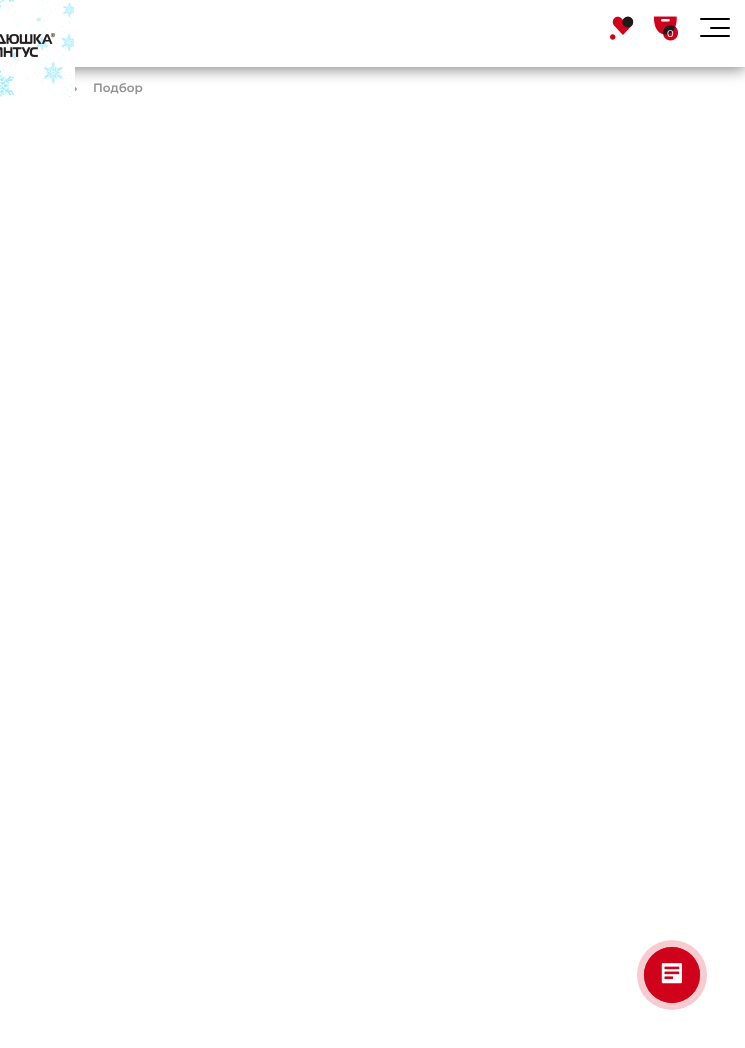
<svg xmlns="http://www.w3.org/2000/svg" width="745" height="1048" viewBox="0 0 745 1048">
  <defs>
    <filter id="blur1" x="-50%" y="-200%" width="200%" height="500%"><feGaussianBlur stdDeviation="7.5"/></filter>
  </defs>
  <rect width="100%" height="100%" fill="#ffffff"/>
  <image x="75" y="86" width="2" height="6" href="img7.png"/>
  <rect x="0" y="5" width="745" height="64" fill="#000000" fill-opacity="0.5" filter="url(#blur1)"/>
  <rect x="75" y="0" width="670" height="67" fill="#ffffff"/>
  <image x="0" y="0" width="75" height="97" href="img1.png"/>
  <image x="610" y="34" width="6" height="6" href="img4.png"/>
  <image x="612" y="16" width="21" height="19" href="img2.png"/>
  <image x="622" y="16" width="12" height="12" href="img3.png"/>
  <path d="M670.5 40.5C680.5 40.5 680.5 25 670.5 25C660.5 25 660.5 40.5 670.5 40.5Z" fill="#d0021b"/>
  <image x="654" y="16" width="23" height="19" href="img5.png"/>
  <image x="662" y="25" width="14" height="10" href="img6.png"/>
  <text x="667" y="37" font-family="Montserrat" font-size="10" fill="#ffffff">0</text>
  <rect x="700" y="18" width="30" height="2" rx="1" fill="#000000"/>
  <rect x="710" y="27" width="20" height="2" rx="1" fill="#000000"/>
  <rect x="700" y="35" width="30" height="2" rx="1" fill="#000000"/>
  <text x="93" y="92" font-family="Montserrat" font-size="12" font-weight="600" fill="#939393">Подбор</text>
  <circle cx="672" cy="975" r="35" fill="#f6ccd1"/>
  <circle cx="672" cy="975" r="27.6" fill="none" stroke="#d0021b" stroke-width="0.8"/>
  <circle cx="672" cy="975" r="28" fill="#d0021b"/>
  <image x="661" y="963" width="21" height="21" href="img8.png"/>
</svg>
